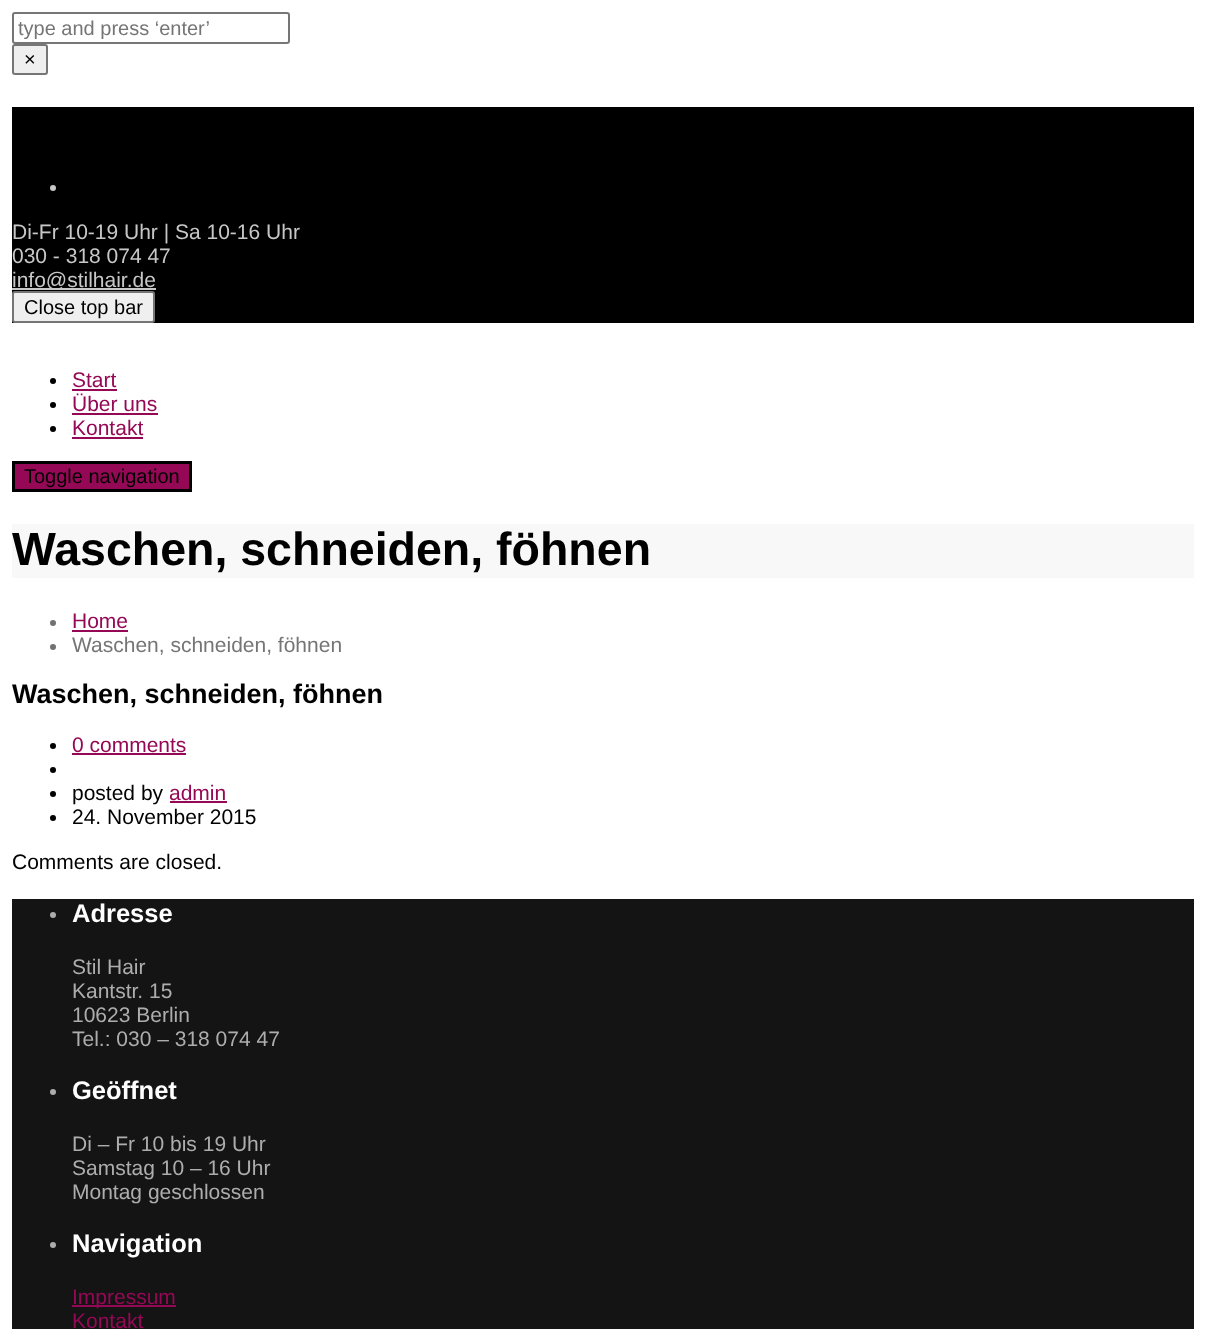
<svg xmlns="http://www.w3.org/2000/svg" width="1206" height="1329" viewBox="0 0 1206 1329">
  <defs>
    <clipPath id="clip1"><rect x="18" y="17" width="266" height="22"/></clipPath>
  </defs>
  <rect width="100%" height="100%" fill="#ffffff"/>
  <rect x="13" y="13" width="276" height="30" rx="2" fill="none" stroke="#767676" stroke-width="2"/>
  <g clip-path="url(#clip1)">
    <text x="18" y="35" font-family="Liberation Sans" font-size="20" fill="#757575">type and press ‘enter’</text>
  </g>
  <rect x="13" y="45" width="34" height="29" rx="2" fill="#efefef" stroke="#767676" stroke-width="2"/>
  <text x="24" y="66" font-family="Liberation Sans" font-size="20" fill="#000000">×</text>
  <rect x="12" y="107" width="1182" height="216" fill="#000000"/>
  <circle cx="53" cy="188" r="3" fill="#c7c7c7"/>
  <text x="12" y="239" font-family="Liberation Sans" font-size="21" fill="#c7c7c7">Di-Fr 10-19 Uhr | Sa 10-16 Uhr</text>
  <text x="12" y="263" font-family="Liberation Sans" font-size="21" fill="#c7c7c7">030 - 318 074 47</text>
  <rect x="12" y="288" width="144" height="2" fill="#c7c7c7"/>
  <text x="12" y="287" font-family="Liberation Sans" font-size="21" fill="#c7c7c7">info@stilhair.de</text>
  <rect x="13" y="292" width="141" height="30" rx="2" fill="#efefef" stroke="#767676" stroke-width="2"/>
  <text x="24" y="314" font-family="Liberation Sans" font-size="20" fill="#000000">Close top bar</text>
  <circle cx="53" cy="381" r="3" fill="#000000"/>
  <text x="72" y="387" font-family="Liberation Sans" font-size="21" fill="#940855">Start</text>
  <rect x="72" y="389" width="45" height="2" fill="#940855"/>
  <circle cx="53" cy="405" r="3" fill="#000000"/>
  <text x="72" y="411" font-family="Liberation Sans" font-size="21" fill="#940855">Über uns</text>
  <rect x="72" y="413" width="86" height="2" fill="#940855"/>
  <circle cx="53" cy="429" r="3" fill="#000000"/>
  <text x="72" y="435" font-family="Liberation Sans" font-size="21" fill="#940855">Kontakt</text>
  <rect x="72" y="437" width="71" height="2" fill="#940855"/>
  <rect x="13.5" y="462.5" width="177" height="28" fill="#940855" stroke="#000000" stroke-width="3"/>
  <text x="24" y="483" font-family="Liberation Sans" font-size="20" fill="#000000">Toggle navigation</text>
  <rect x="12" y="524" width="1182" height="54" fill="#f8f8f8"/>
  <text x="12" y="565" font-family="Liberation Sans" font-size="46.5" font-weight="bold" fill="#000000">Waschen, schneiden, föhnen</text>
  <circle cx="53" cy="623" r="3" fill="#727272"/>
  <text x="72" y="628" font-family="Liberation Sans" font-size="21" fill="#940855">Home</text>
  <rect x="72" y="630" width="56" height="2" fill="#940855"/>
  <circle cx="53" cy="647" r="3" fill="#727272"/>
  <text x="72" y="652" font-family="Liberation Sans" font-size="21" fill="#757575">Waschen, schneiden, föhnen</text>
  <text x="12" y="703" font-family="Liberation Sans" font-size="27" font-weight="bold" fill="#000000">Waschen, schneiden, föhnen</text>
  <circle cx="53" cy="746" r="3" fill="#000000"/>
  <text x="72" y="752" font-family="Liberation Sans" font-size="21" fill="#940855">0 comments</text>
  <rect x="72" y="753" width="114" height="2" fill="#940855"/>
  <circle cx="53" cy="770" r="3" fill="#000000"/>
  <circle cx="53" cy="794" r="3" fill="#000000"/>
  <text x="72" y="800" font-family="Liberation Sans" font-size="21" fill="#000000">posted by</text>
  <text x="169" y="800" font-family="Liberation Sans" font-size="21" fill="#940855">admin</text>
  <rect x="170" y="801" width="57" height="2" fill="#940855"/>
  <circle cx="53" cy="818" r="3" fill="#000000"/>
  <text x="72" y="824" font-family="Liberation Sans" font-size="21" fill="#000000">24. November 2015</text>
  <text x="12" y="869" font-family="Liberation Sans" font-size="21" fill="#000000">Comments are closed.</text>
  <rect x="12" y="899" width="1182" height="430" fill="#141414"/>
  <circle cx="53" cy="915" r="3" fill="#adadad"/>
  <text x="72" y="922" font-family="Liberation Sans" font-size="25.5" font-weight="bold" fill="#ffffff">Adresse</text>
  <text x="72" y="974" font-family="Liberation Sans" font-size="21" fill="#adadad">Stil Hair</text>
  <text x="72" y="998" font-family="Liberation Sans" font-size="21" fill="#adadad">Kantstr. 15</text>
  <text x="72" y="1022" font-family="Liberation Sans" font-size="21" fill="#adadad">10623 Berlin</text>
  <text x="72" y="1046" font-family="Liberation Sans" font-size="21" fill="#adadad">Tel.: 030 – 318 074 47</text>
  <circle cx="53" cy="1092" r="3" fill="#adadad"/>
  <text x="72" y="1099" font-family="Liberation Sans" font-size="25.5" font-weight="bold" fill="#ffffff">Geöffnet</text>
  <text x="72" y="1151" font-family="Liberation Sans" font-size="21" fill="#adadad">Di – Fr 10 bis 19 Uhr</text>
  <text x="72" y="1175" font-family="Liberation Sans" font-size="21" fill="#adadad">Samstag 10 – 16 Uhr</text>
  <text x="72" y="1199" font-family="Liberation Sans" font-size="21" fill="#adadad">Montag geschlossen</text>
  <circle cx="53" cy="1245" r="3" fill="#adadad"/>
  <text x="72" y="1252" font-family="Liberation Sans" font-size="25.5" font-weight="bold" fill="#ffffff">Navigation</text>
  <rect x="72" y="1305" width="104" height="2" fill="#940855"/>
  <text x="72" y="1304" font-family="Liberation Sans" font-size="21" fill="#940855">Impressum</text>
  <text x="72" y="1328" font-family="Liberation Sans" font-size="21" fill="#940855">Kontakt</text>
</svg>
